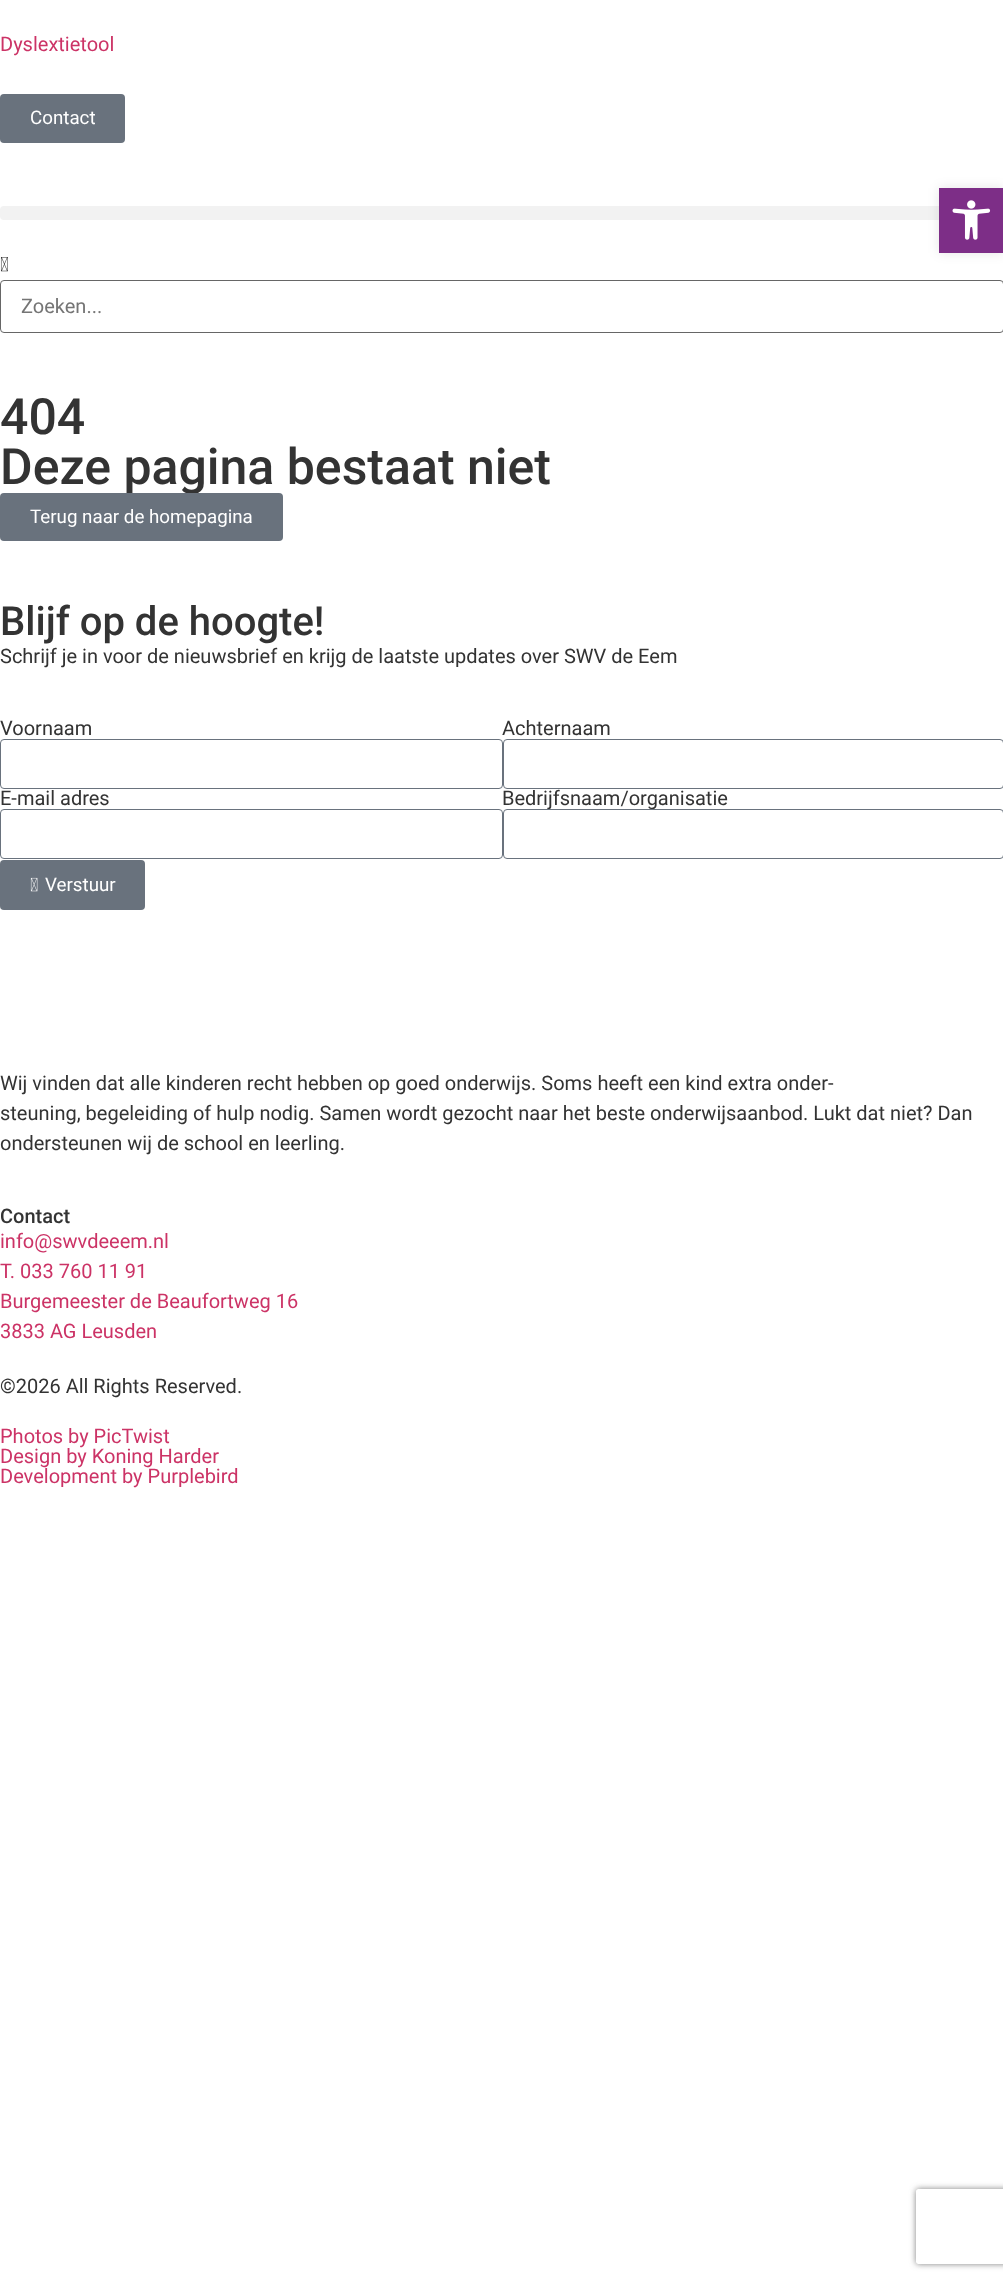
<svg xmlns="http://www.w3.org/2000/svg" width="1003" height="2281" viewBox="0 0 1003 2281">
  <defs>
    <filter id="blur1" x="-50%" y="-200%" width="200%" height="500%"><feGaussianBlur stdDeviation="6"/></filter>
    <clipPath id="clip1"><path d="M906 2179H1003V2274H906ZM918.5 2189H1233.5C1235 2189 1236 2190 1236 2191.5V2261.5C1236 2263 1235 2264 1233.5 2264H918.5C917 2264 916 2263 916 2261.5V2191.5C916 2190 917 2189 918.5 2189Z" clip-rule="evenodd"/></clipPath>
    <filter id="blur2" x="-50%" y="-200%" width="200%" height="500%"><feGaussianBlur stdDeviation="3"/></filter>
  </defs>
  <rect width="100%" height="100%" fill="#ffffff"/>
  <text x="0" y="51" font-family="Roboto" font-size="20" fill="#cc3366">Dyslextietool</text>
  <rect x="0" y="94" width="125" height="49" rx="4" fill="#69727d"/>
  <text x="30" y="124" font-family="Roboto" font-size="18.75" fill="#ffffff">Contact</text>
  <rect x="0" y="206" width="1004" height="14" rx="4" fill="#f2f2f2"/>
  <image x="0" y="257" width="8" height="15" href="img1.png"/>
  <rect x="0.5" y="280.5" width="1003" height="52" rx="3.5" fill="none" stroke="#666666"/>
  <text x="21" y="313" font-family="Roboto" font-size="20" fill="#757575">Zoeken...</text>
  <rect x="939" y="188" width="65" height="65" fill="#000000" fill-opacity="0.1" filter="url(#blur1)"/>
  <rect x="939" y="188" width="64" height="65" fill="#7d2e87"/>
  <image x="952" y="200" width="39" height="40" href="img2.png"/>
  <text x="0" y="434" font-family="Roboto" font-size="50" font-weight="500" fill="#333333">404</text>
  <text x="0" y="484" font-family="Roboto" font-size="50" font-weight="500" fill="#333333">Deze pagina bestaat niet</text>
  <rect x="0" y="493" width="283" height="48" rx="4" fill="#69727d"/>
  <text x="30" y="523" font-family="Roboto" font-size="18.75" fill="#ffffff">Terug naar de homepagina</text>
  <text x="0" y="635" font-family="Roboto" font-size="40" font-weight="500" fill="#333333">Blijf op de hoogte!</text>
  <text x="0" y="663" font-family="Roboto" font-size="20" fill="#333333">Schrijf je in voor de nieuwsbrief en krijg de laatste updates over SWV de Eem</text>
  <text x="0" y="735" font-family="Roboto" font-size="20" fill="#333333">Voornaam</text>
  <rect x="0.5" y="739.5" width="502" height="49" rx="3.5" fill="none" stroke="#69727d"/>
  <text x="502" y="735" font-family="Roboto" font-size="20" fill="#333333">Achternaam</text>
  <rect x="503.5" y="739.5" width="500" height="49" rx="3.5" fill="none" stroke="#69727d"/>
  <text x="0" y="805" font-family="Roboto" font-size="20" fill="#333333">E-mail adres</text>
  <rect x="0.5" y="809.5" width="502" height="49" rx="3.5" fill="none" stroke="#69727d"/>
  <text x="502" y="805" font-family="Roboto" font-size="20" fill="#333333">Bedrijfsnaam/organisatie</text>
  <rect x="503.5" y="809.5" width="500" height="49" rx="3.5" fill="none" stroke="#69727d"/>
  <rect x="0" y="860" width="145" height="50" rx="4" fill="#69727d"/>
  <image x="30" y="877" width="8" height="15" href="img3.png"/>
  <text x="45" y="891" font-family="Roboto" font-size="18.75" fill="#ffffff">Verstuur</text>
  <text x="0" y="1090" font-family="Roboto" font-size="20" fill="#333333">Wij vinden dat alle kinderen recht hebben op goed onderwijs. Soms heeft een kind extra onder-</text>
  <text x="0" y="1120" font-family="Roboto" font-size="20" fill="#333333">steuning, begeleiding of hulp nodig. Samen wordt gezocht naar het beste onderwijsaanbod. Lukt dat niet? Dan</text>
  <text x="0" y="1150" font-family="Roboto" font-size="20" fill="#333333">ondersteunen wij de school en leerling.</text>
  <text x="0" y="1223" font-family="Roboto" font-size="20" font-weight="500" fill="#333333">Contact</text>
  <text x="0" y="1248" font-family="Roboto" font-size="20" fill="#cc3366">info@swvdeeem.nl</text>
  <text x="0" y="1278" font-family="Roboto" font-size="20" fill="#cc3366">T. 033 760 11 91</text>
  <text x="0" y="1308" font-family="Roboto" font-size="20" fill="#cc3366">Burgemeester de Beaufortweg 16</text>
  <text x="0" y="1338" font-family="Roboto" font-size="20" fill="#cc3366">3833 AG Leusden</text>
  <text x="0" y="1393" font-family="Roboto" font-size="20" fill="#333333">©2026 All Rights Reserved.</text>
  <text x="0" y="1443" font-family="Roboto" font-size="20" fill="#cc3366">Photos by PicTwist</text>
  <text x="0" y="1463" font-family="Roboto" font-size="20" fill="#cc3366">Design by Koning Harder</text>
  <text x="0" y="1483" font-family="Roboto" font-size="20" fill="#cc3366">Development by Purplebird</text>
  <g clip-path="url(#clip1)">
    <rect x="916" y="2189" width="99" height="75" rx="2.5" fill="#808080" filter="url(#blur2)"/>
  </g>
</svg>
